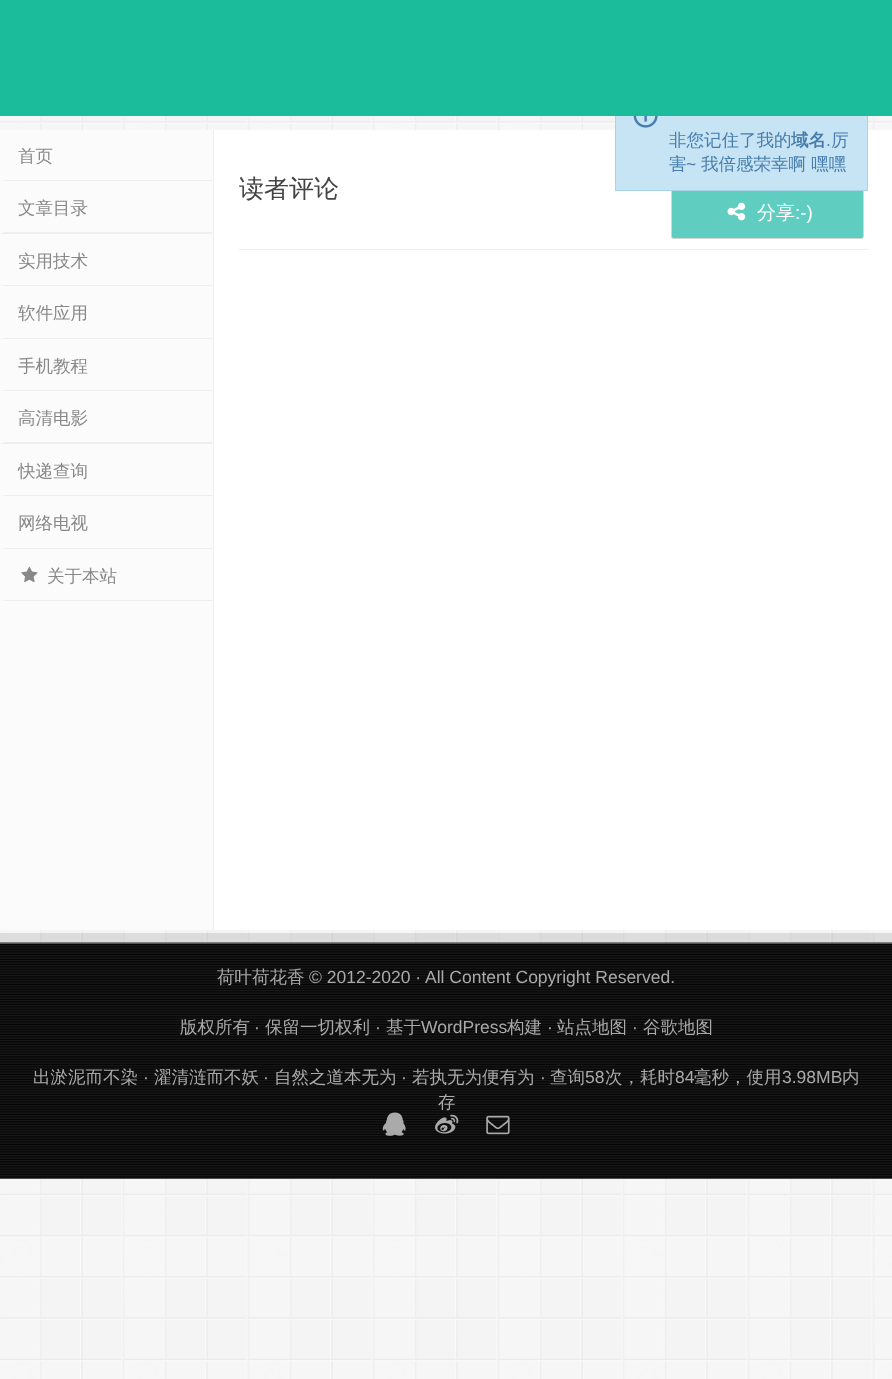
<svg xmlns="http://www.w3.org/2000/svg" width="892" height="1379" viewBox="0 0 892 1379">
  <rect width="100%" height="100%" fill="#ffffff"/>
  <image x="0" y="116" width="892" height="1263" href="img1.png"/>
  <rect x="214" y="130" width="678" height="800" fill="#ffffff"/>
  <rect x="671.5" y="185.5" width="192" height="53" rx="2" fill="#5fcec0" stroke="#d6d6d6"/>
  <rect x="616" y="116" width="251" height="74" fill="#c6e4f4"/>
  <rect x="615.5" y="88.5" width="252" height="102" fill="none" stroke="#a9d3eb"/>
  <rect x="0" y="0" width="892" height="116" fill="#1abc9c"/>
  <image x="633" y="116" width="25" height="12" href="img2.png"/>
  <text x="669" y="146" font-family="WenQuanYi Zen Hei" font-size="17.5" font-weight="500" fill="#477dac">非您记住了我的</text>
  <text x="791" y="146" font-family="WenQuanYi Zen Hei" font-size="17.5" font-weight="bold" fill="#477dac">域名</text>
  <text x="826" y="146" font-family="Liberation Sans" font-size="17.5" fill="#477dac">.</text>
  <text x="831" y="146" font-family="WenQuanYi Zen Hei" font-size="17.5" font-weight="500" fill="#477dac">厉</text>
  <text x="669" y="170" font-family="WenQuanYi Zen Hei" font-size="17.5" font-weight="500" fill="#477dac">害</text>
  <text x="686" y="170" font-family="Liberation Sans" font-size="17.5" fill="#477dac">~</text>
  <text x="701" y="170" font-family="WenQuanYi Zen Hei" font-size="17.5" font-weight="500" fill="#477dac">我倍感荣幸啊 嘿嘿</text>
  <rect x="0" y="130" width="213" height="800" fill="#fbfbfb"/>
  <path d="M212 181H0L5 180H212Z" fill="#eeeeee"/>
  <text x="18" y="162" font-family="WenQuanYi Zen Hei" font-size="17.5" font-weight="500" fill="#888888">首页</text>
  <path d="M212 234H0L5 232H212Z" fill="#eeeeee"/>
  <text x="18" y="214" font-family="WenQuanYi Zen Hei" font-size="17.5" font-weight="500" fill="#888888">文章目录</text>
  <path d="M212 286H0L5 285H212Z" fill="#eeeeee"/>
  <text x="18" y="267" font-family="WenQuanYi Zen Hei" font-size="17.5" font-weight="500" fill="#888888">实用技术</text>
  <path d="M212 339H0L5 338H212Z" fill="#eeeeee"/>
  <text x="18" y="319" font-family="WenQuanYi Zen Hei" font-size="17.5" font-weight="500" fill="#888888">软件应用</text>
  <path d="M212 391H0L5 390H212Z" fill="#eeeeee"/>
  <text x="18" y="372" font-family="WenQuanYi Zen Hei" font-size="17.5" font-weight="500" fill="#888888">手机教程</text>
  <path d="M212 444H0L5 442H212Z" fill="#eeeeee"/>
  <text x="18" y="424" font-family="WenQuanYi Zen Hei" font-size="17.5" font-weight="500" fill="#888888">高清电影</text>
  <path d="M212 496H0L5 495H212Z" fill="#eeeeee"/>
  <text x="18" y="477" font-family="WenQuanYi Zen Hei" font-size="17.5" font-weight="500" fill="#888888">快递查询</text>
  <path d="M212 549H0L5 548H212Z" fill="#eeeeee"/>
  <text x="18" y="529" font-family="WenQuanYi Zen Hei" font-size="17.5" font-weight="500" fill="#888888">网络电视</text>
  <path d="M212 601H0L5 600H212Z" fill="#eeeeee"/>
  <image x="21" y="566" width="17" height="17" href="img3.png"/>
  <text x="47" y="582" font-family="WenQuanYi Zen Hei" font-size="17.5" font-weight="500" fill="#888888">关于本站</text>
  <rect x="213" y="130" width="1" height="800" fill="#eeeeee"/>
  <rect x="239" y="249" width="629" height="1" fill="#eeeeee"/>
  <text x="239" y="197" font-family="WenQuanYi Zen Hei" font-size="25" font-weight="500" fill="#444444">读者评论</text>
  <image x="727" y="202" width="19" height="19" href="img4.png"/>
  <text x="757" y="219" font-family="WenQuanYi Zen Hei" font-size="19" font-weight="500" fill="#ffffff">分享</text>
  <text x="795" y="219" font-family="Liberation Sans" font-size="19" fill="#ffffff">:-)</text>
  <path d="M0 933V942H892V1169H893V933Z" fill="#000000" fill-opacity="0.1"/>
  <image x="0" y="942" width="892" height="237" href="img5.png"/>
  <rect x="0" y="943" width="892" height="1" fill="#555555"/>
  <text x="217" y="983" font-family="WenQuanYi Zen Hei" font-size="17.5" font-weight="500" fill="#aaaaaa">荷叶荷花香</text>
  <text x="309" y="983" font-family="Liberation Sans" font-size="17.5" fill="#aaaaaa">© 2012-2020 · All Content Copyright Reserved.</text>
  <text x="180" y="1033" font-family="WenQuanYi Zen Hei" font-size="17.5" font-weight="500" fill="#aaaaaa">版权所有</text>
  <text x="254" y="1033" font-family="Liberation Sans" font-size="17.5" fill="#aaaaaa">·</text>
  <text x="265" y="1033" font-family="WenQuanYi Zen Hei" font-size="17.5" font-weight="500" fill="#aaaaaa">保留一切权利</text>
  <text x="375" y="1033" font-family="Liberation Sans" font-size="17.5" fill="#aaaaaa">·</text>
  <text x="386" y="1033" font-family="WenQuanYi Zen Hei" font-size="17.5" font-weight="500" fill="#aaaaaa">基于</text>
  <text x="421" y="1033" font-family="Liberation Sans" font-size="17.5" fill="#aaaaaa">WordPress</text>
  <text x="507" y="1033" font-family="WenQuanYi Zen Hei" font-size="17.5" font-weight="500" fill="#aaaaaa">构建</text>
  <text x="547" y="1033" font-family="Liberation Sans" font-size="17.5" fill="#aaaaaa">·</text>
  <text x="557" y="1033" font-family="WenQuanYi Zen Hei" font-size="17.5" font-weight="500" fill="#aaaaaa">站点地图</text>
  <text x="632" y="1033" font-family="Liberation Sans" font-size="17.5" fill="#aaaaaa">·</text>
  <text x="643" y="1033" font-family="WenQuanYi Zen Hei" font-size="17.5" font-weight="500" fill="#aaaaaa">谷歌地图</text>
  <text x="33" y="1083" font-family="WenQuanYi Zen Hei" font-size="17.5" font-weight="500" fill="#aaaaaa">出淤泥而不染</text>
  <text x="143" y="1083" font-family="Liberation Sans" font-size="17.5" fill="#aaaaaa">·</text>
  <text x="154" y="1083" font-family="WenQuanYi Zen Hei" font-size="17.5" font-weight="500" fill="#aaaaaa">濯清涟而不妖</text>
  <text x="263" y="1083" font-family="Liberation Sans" font-size="17.5" fill="#aaaaaa">·</text>
  <text x="274" y="1083" font-family="WenQuanYi Zen Hei" font-size="17.5" font-weight="500" fill="#aaaaaa">自然之道本无为</text>
  <text x="401" y="1083" font-family="Liberation Sans" font-size="17.5" fill="#aaaaaa">·</text>
  <text x="412" y="1083" font-family="WenQuanYi Zen Hei" font-size="17.5" font-weight="500" fill="#aaaaaa">若执无为便有为</text>
  <text x="540" y="1083" font-family="Liberation Sans" font-size="17.5" fill="#aaaaaa">·</text>
  <text x="550" y="1083" font-family="WenQuanYi Zen Hei" font-size="17.5" font-weight="500" fill="#aaaaaa">查询</text>
  <text x="585" y="1083" font-family="Liberation Sans" font-size="17.5" fill="#aaaaaa">58</text>
  <text x="605" y="1083" font-family="WenQuanYi Zen Hei" font-size="17.5" font-weight="500" fill="#aaaaaa">次，耗时</text>
  <text x="675" y="1083" font-family="Liberation Sans" font-size="17.5" fill="#aaaaaa">84</text>
  <text x="694" y="1083" font-family="WenQuanYi Zen Hei" font-size="17.5" font-weight="500" fill="#aaaaaa">毫秒，使用</text>
  <text x="782" y="1083" font-family="Liberation Sans" font-size="17.5" fill="#aaaaaa">3.98MB</text>
  <text x="842" y="1083" font-family="WenQuanYi Zen Hei" font-size="17.5" font-weight="500" fill="#aaaaaa">内</text>
  <text x="438" y="1108" font-family="WenQuanYi Zen Hei" font-size="17.5" font-weight="500" fill="#aaaaaa">存</text>
  <image x="382" y="1112" width="24" height="24" href="img6.png"/>
  <image x="435" y="1114" width="24" height="20" href="img7.png"/>
  <image x="486" y="1115" width="24" height="20" href="img8.png"/>
</svg>
